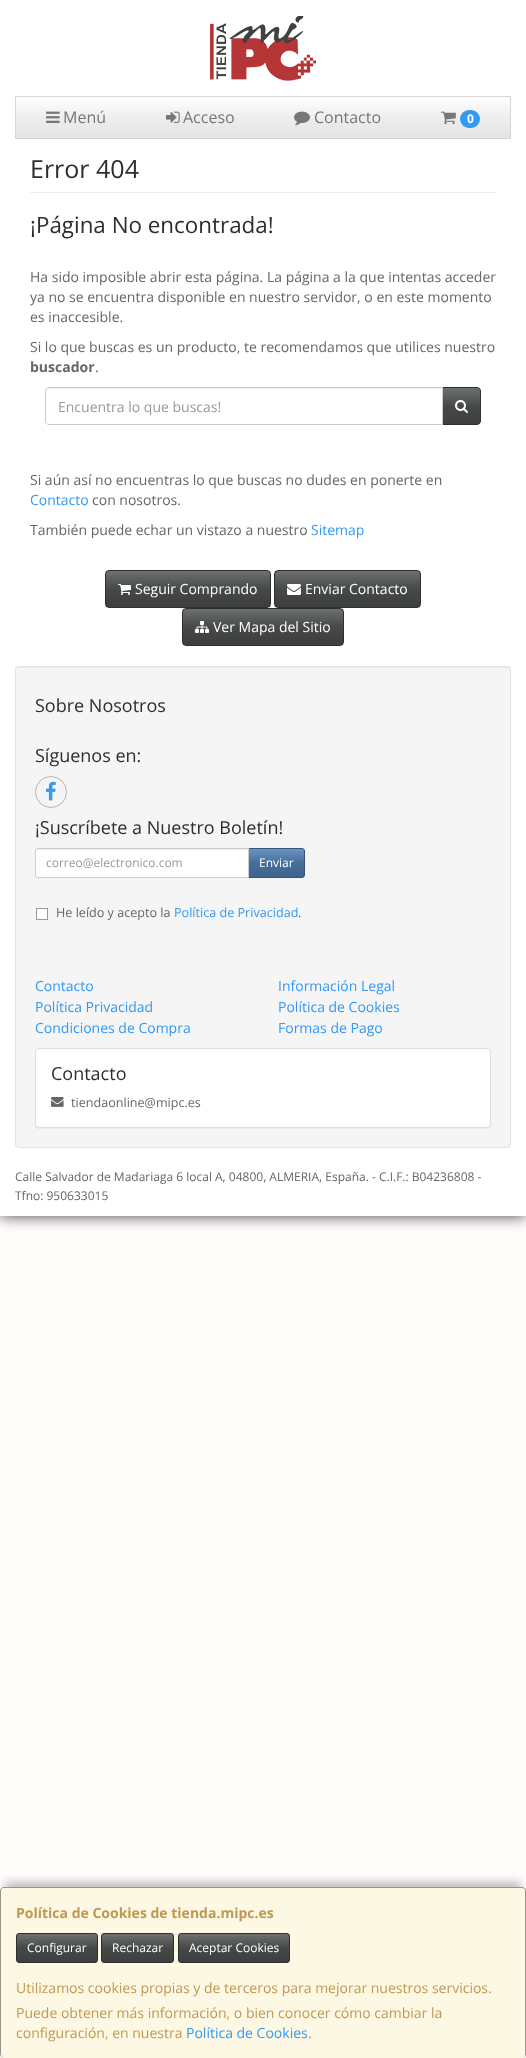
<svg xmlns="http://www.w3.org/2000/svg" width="526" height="2058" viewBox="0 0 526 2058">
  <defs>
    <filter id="blur1" x="-50%" y="-200%" width="200%" height="500%"><feGaussianBlur stdDeviation="7.5"/></filter>
    <linearGradient id="g1" gradientUnits="userSpaceOnUse" x1="263" y1="97" x2="263" y2="138"><stop offset="0" stop-color="#ffffff"/><stop offset="0.5" stop-color="#eeeeee"/><stop offset="1" stop-color="#e4e4e4"/></linearGradient>
    <linearGradient id="g2" gradientUnits="userSpaceOnUse" x1="462" y1="388" x2="462" y2="424"><stop offset="0" stop-color="#6d7070"/><stop offset="0.5" stop-color="#474949"/><stop offset="1" stop-color="#3d3f3f"/></linearGradient>
    <clipPath id="clip1"><rect x="105" y="570" width="166" height="38" rx="4"/></clipPath>
    <linearGradient id="g3" gradientUnits="userSpaceOnUse" x1="188" y1="571" x2="188" y2="607"><stop offset="0" stop-color="#6d7070"/><stop offset="0.5" stop-color="#474949"/><stop offset="1" stop-color="#3d3f3f"/></linearGradient>
    <clipPath id="clip2"><rect x="274" y="570" width="147" height="38" rx="4"/></clipPath>
    <linearGradient id="g4" gradientUnits="userSpaceOnUse" x1="348" y1="571" x2="348" y2="607"><stop offset="0" stop-color="#6d7070"/><stop offset="0.5" stop-color="#474949"/><stop offset="1" stop-color="#3d3f3f"/></linearGradient>
    <clipPath id="clip3"><rect x="182" y="608" width="162" height="38" rx="4"/></clipPath>
    <linearGradient id="g5" gradientUnits="userSpaceOnUse" x1="263" y1="609" x2="263" y2="645"><stop offset="0" stop-color="#6d7070"/><stop offset="0.5" stop-color="#474949"/><stop offset="1" stop-color="#3d3f3f"/></linearGradient>
    <linearGradient id="g6" gradientUnits="userSpaceOnUse" x1="277" y1="849" x2="277" y2="877"><stop offset="0" stop-color="#6d94bf"/><stop offset="0.5" stop-color="#446e9b"/><stop offset="1" stop-color="#3e648d"/></linearGradient>
    <filter id="blur2" x="-50%" y="-200%" width="200%" height="500%"><feGaussianBlur stdDeviation="0.5"/></filter>
    <filter id="blur3" x="-50%" y="-200%" width="200%" height="500%"><feGaussianBlur stdDeviation="5"/></filter>
    <linearGradient id="g7" gradientUnits="userSpaceOnUse" x1="57" y1="1934" x2="57" y2="1962"><stop offset="0" stop-color="#6d7070"/><stop offset="0.5" stop-color="#474949"/><stop offset="1" stop-color="#3d3f3f"/></linearGradient>
    <linearGradient id="g8" gradientUnits="userSpaceOnUse" x1="138" y1="1934" x2="138" y2="1962"><stop offset="0" stop-color="#6d7070"/><stop offset="0.5" stop-color="#474949"/><stop offset="1" stop-color="#3d3f3f"/></linearGradient>
    <linearGradient id="g9" gradientUnits="userSpaceOnUse" x1="234" y1="1934" x2="234" y2="1962"><stop offset="0" stop-color="#6d7070"/><stop offset="0.5" stop-color="#474949"/><stop offset="1" stop-color="#3d3f3f"/></linearGradient>
  </defs>
  <rect width="100%" height="100%" fill="#fffcfc"/>
  <rect x="0" y="0" width="526" height="1216" fill="#000000" fill-opacity="0.75" filter="url(#blur1)"/>
  <rect x="0" y="0" width="526" height="1216" fill="#ffffff"/>
  <image x="210" y="16" width="106" height="65" href="img1.png"/>
  <rect x="16" y="100" width="494" height="38" fill="url(#g1)"/>
  <rect x="15.5" y="96.5" width="495" height="42" fill="none" stroke="#d5d5d5"/>
  <image x="46" y="111" width="14" height="12" href="img2.png"/>
  <text x="63" y="123" font-family="Open Sans" font-size="16" fill="#777777">Menú</text>
  <image x="166" y="111" width="14" height="12" href="img3.png"/>
  <text x="183" y="123" font-family="Open Sans" font-size="16" fill="#777777">Acceso</text>
  <image x="294" y="111" width="16" height="15" href="img4.png"/>
  <text x="314" y="123" font-family="Open Sans" font-size="16" fill="#777777">Contacto</text>
  <image x="441" y="111" width="15" height="14" href="img5.png"/>
  <rect x="460" y="110" width="20" height="18" rx="9" fill="#3399f3"/>
  <text x="467" y="123" font-family="Open Sans" font-size="12" font-weight="bold" fill="#ffffff">0</text>
  <rect x="30" y="192" width="466" height="1" fill="#eeeeee"/>
  <text x="30" y="178" font-family="Open Sans" font-size="25" fill="#2d2d2d">Error 404</text>
  <text x="30" y="233" font-family="Open Sans" font-size="22.4" fill="#2d2d2d">¡Página No encontrada!</text>
  <text x="30" y="282" font-family="Open Sans" font-size="14" fill="#666666">Ha sido imposible abrir esta página. La página a la que intentas acceder</text>
  <text x="30" y="302" font-family="Open Sans" font-size="14" fill="#666666">ya no se encuentra disponible en nuestro servidor, o en este momento</text>
  <text x="30" y="322" font-family="Open Sans" font-size="14" fill="#666666">es inaccesible.</text>
  <text x="30" y="352" font-family="Open Sans" font-size="14" fill="#666666">Si lo que buscas es un producto, te recomendamos que utilices nuestro</text>
  <text x="30" y="372" font-family="Open Sans" font-size="14" font-weight="bold" fill="#666666">buscador</text>
  <text x="95" y="372" font-family="Open Sans" font-size="14" fill="#666666">.</text>
  <rect x="443" y="388" width="37" height="36" fill="url(#g2)"/>
  <path d="M442.5 387.5H477C479 387.5 480.5 389 480.5 391V421C480.5 423 479 424.5 477 424.5H442.5Z" fill="none" stroke="#2e2f2f"/>
  <path d="M49 387H443V425H49C47 425 45 423 45 421V391C45 389 47 387 49 387Z" fill="#ffffff"/>
  <path d="M49 389H442V388H49C47 388 46 389 46 391V392C46 390 47 389 49 389Z" fill="#ececec"/>
  <path d="M49 387.5H442.5V424.5H49C47 424.5 45.5 423 45.5 421V391C45.5 389 47 387.5 49 387.5Z" fill="none" stroke="#cccccc"/>
  <text x="58" y="412" font-family="Open Sans" font-size="14" fill="#999999">Encuentra lo que buscas!</text>
  <image x="455" y="400" width="13" height="13" href="img6.png"/>
  <text x="30" y="485" font-family="Open Sans" font-size="14" fill="#666666">Si aún así no encuentras lo que buscas no dudes en ponerte en</text>
  <text x="30" y="505" font-family="Open Sans" font-size="14" fill="#3399f3">Contacto</text>
  <text x="92" y="505" font-family="Open Sans" font-size="14" fill="#666666">con nosotros.</text>
  <text x="30" y="535" font-family="Open Sans" font-size="14" fill="#666666">También puede echar un vistazo a nuestro</text>
  <text x="311" y="535" font-family="Open Sans" font-size="14" fill="#3399f3">Sitemap</text>
  <g clip-path="url(#clip1)">
    <rect x="106" y="571" width="164" height="36" fill="url(#g3)"/>
  </g>
  <rect x="105.5" y="570.5" width="165" height="37" rx="3.5" fill="none" stroke="#2e2f2f"/>
  <image x="118" y="584" width="13" height="11" href="img7.png"/>
  <text x="135" y="594" font-family="Open Sans" font-size="14" fill="#ffffff">Seguir Comprando</text>
  <g clip-path="url(#clip2)">
    <rect x="275" y="571" width="145" height="36" fill="url(#g4)"/>
  </g>
  <rect x="274.5" y="570.5" width="146" height="37" rx="3.5" fill="none" stroke="#2e2f2f"/>
  <image x="287" y="584" width="14" height="11" href="img8.png"/>
  <text x="305" y="594" font-family="Open Sans" font-size="14" fill="#ffffff">Enviar Contacto</text>
  <g clip-path="url(#clip3)">
    <rect x="183" y="609" width="160" height="36" fill="url(#g5)"/>
  </g>
  <rect x="182.5" y="608.5" width="161" height="37" rx="3.5" fill="none" stroke="#2e2f2f"/>
  <image x="195" y="621" width="14" height="12" href="img9.png"/>
  <text x="213" y="632" font-family="Open Sans" font-size="14" fill="#ffffff">Ver Mapa del Sitio</text>
  <rect x="15" y="666" width="496" height="482" rx="4" fill="#f5f5f5"/>
  <path d="M19 668H507C509 668 510 669 510 671C510 669 509 667 507 667H19C17 667 16 669 16 671C16 669 17 668 19 668Z" fill="#e9e9e9"/>
  <rect x="15.5" y="666.5" width="495" height="481" rx="3.5" fill="none" stroke="#e3e3e3"/>
  <text x="35" y="712" font-family="Open Sans" font-size="18" fill="#2d2d2d">Sobre Nosotros</text>
  <text x="35" y="762" font-family="Open Sans" font-size="18" fill="#2d2d2d">Síguenos en:</text>
  <circle cx="51" cy="792" r="15.5" fill="none" stroke="#b5b5b5"/>
  <image x="46" y="781" width="10" height="20" href="img10.png"/>
  <text x="35" y="834" font-family="Open Sans" font-size="18" fill="#2d2d2d">¡Suscríbete a Nuestro Boletín!</text>
  <rect x="249" y="849" width="55" height="28" fill="url(#g6)"/>
  <path d="M248.5 848.5H302C303.5 848.5 304.5 849.5 304.5 851V875C304.5 876.5 303.5 877.5 302 877.5H248.5Z" fill="none" stroke="#345578"/>
  <path d="M38 848H249V878H38C36.5 878 35 876.5 35 875V851C35 849.5 36.5 848 38 848Z" fill="#ffffff"/>
  <path d="M38 850H248V849H38L37 850L36 852C36 851 37 850 38 850Z" fill="#ececec"/>
  <path d="M38 848.5H248.5V877.5H38C36.5 877.5 35.5 876.5 35.5 875V851C35.5 849.5 36.5 848.5 38 848.5Z" fill="none" stroke="#cccccc"/>
  <text x="46" y="867" font-family="Open Sans" font-size="12" fill="#999999">correo@electronico.com</text>
  <text x="259" y="867" font-family="Open Sans" font-size="12" fill="#ffffff">Enviar</text>
  <rect x="36.5" y="908.5" width="11" height="11" fill="#ffffff" stroke="#999999"/>
  <text x="56" y="917" font-family="Open Sans" font-size="12.6" fill="#666666">He leído y acepto la</text>
  <text x="174" y="917" font-family="Open Sans" font-size="12.6" fill="#3399f3">Política de Privacidad</text>
  <text x="298" y="917" font-family="Open Sans" font-size="12.6" fill="#666666">.</text>
  <text x="35" y="991" font-family="Open Sans" font-size="14" fill="#3399f3">Contacto</text>
  <text x="278" y="991" font-family="Open Sans" font-size="14" fill="#3399f3">Información Legal</text>
  <text x="35" y="1012" font-family="Open Sans" font-size="14" fill="#3399f3">Política Privacidad</text>
  <text x="278" y="1012" font-family="Open Sans" font-size="14" fill="#3399f3">Política de Cookies</text>
  <text x="35" y="1033" font-family="Open Sans" font-size="14" fill="#3399f3">Condiciones de Compra</text>
  <text x="278" y="1033" font-family="Open Sans" font-size="14" fill="#3399f3">Formas de Pago</text>
  <rect x="35" y="1049" width="456" height="80" rx="4" fill="#000000" fill-opacity="0.05" filter="url(#blur2)"/>
  <rect x="35.5" y="1048.5" width="455" height="79" rx="3.5" fill="#ffffff" stroke="#dddddd"/>
  <text x="51" y="1080" font-family="Open Sans" font-size="18" fill="#2d2d2d">Contacto</text>
  <image x="51" y="1097" width="13" height="10" href="img11.png"/>
  <text x="71" y="1107" font-family="Open Sans" font-size="12.6" fill="#666666">tiendaonline@mipc.es</text>
  <text x="15" y="1181" font-family="Open Sans" font-size="12" fill="#666666">Calle Salvador de Madariaga 6 local A, 04800, ALMERIA, España. - C.I.F.: B04236808 -</text>
  <text x="15" y="1200" font-family="Open Sans" font-size="12" fill="#666666">Tfno: 950633015</text>
  <rect x="5" y="1882" width="516" height="161" fill="#000000" fill-opacity="0.25" filter="url(#blur3)"/>
  <rect x="0" y="1887" width="526" height="171" rx="4" fill="#fcf8e3"/>
  <path d="M4 1887H522C524 1887 526 1889 526 1891V2054C526 2056 524 2058 522 2058H4C2 2058 0 2056 0 2054V1891C0 1889 2 1887 4 1887ZM4 1888H522C524 1888 525 1889 525 1891V2054C525 2056 524 2058 522 2058H4C2 2058 1 2056 1 2054V1891C1 1889 2 1888 4 1888Z" fill="#000000" fill-opacity="0.4" fill-rule="evenodd"/>
  <text x="16" y="1918" font-family="Open Sans" font-size="14" font-weight="bold" fill="#c09853">Política de Cookies de tienda.mipc.es</text>
  <rect x="17" y="1934" width="80" height="28" fill="url(#g7)"/>
  <rect x="16.5" y="1933.5" width="81" height="29" rx="2.5" fill="none" stroke="#2e2f2f"/>
  <text x="27" y="1952" font-family="Open Sans" font-size="12" fill="#ffffff">Configurar</text>
  <rect x="102" y="1934" width="71" height="28" fill="url(#g8)"/>
  <rect x="101.5" y="1933.5" width="72" height="29" rx="2.5" fill="none" stroke="#2e2f2f"/>
  <text x="112" y="1952" font-family="Open Sans" font-size="12" fill="#ffffff">Rechazar</text>
  <rect x="179" y="1934" width="110" height="28" fill="url(#g9)"/>
  <rect x="178.5" y="1933.5" width="111" height="29" rx="2.5" fill="none" stroke="#2e2f2f"/>
  <text x="189" y="1952" font-family="Open Sans" font-size="12" fill="#ffffff">Aceptar Cookies</text>
  <text x="16" y="1993" font-family="Open Sans" font-size="14" fill="#c09853">Utilizamos cookies propias y de terceros para mejorar nuestros servicios.</text>
  <text x="16" y="2018" font-family="Open Sans" font-size="14" fill="#c09853">Puede obtener más información, o bien conocer cómo cambiar la</text>
  <text x="16" y="2038" font-family="Open Sans" font-size="14" fill="#c09853">configuración, en nuestra</text>
  <text x="186" y="2038" font-family="Open Sans" font-size="14" fill="#3399f3">Política de Cookies</text>
  <text x="308" y="2038" font-family="Open Sans" font-size="14" fill="#c09853">.</text>
</svg>
